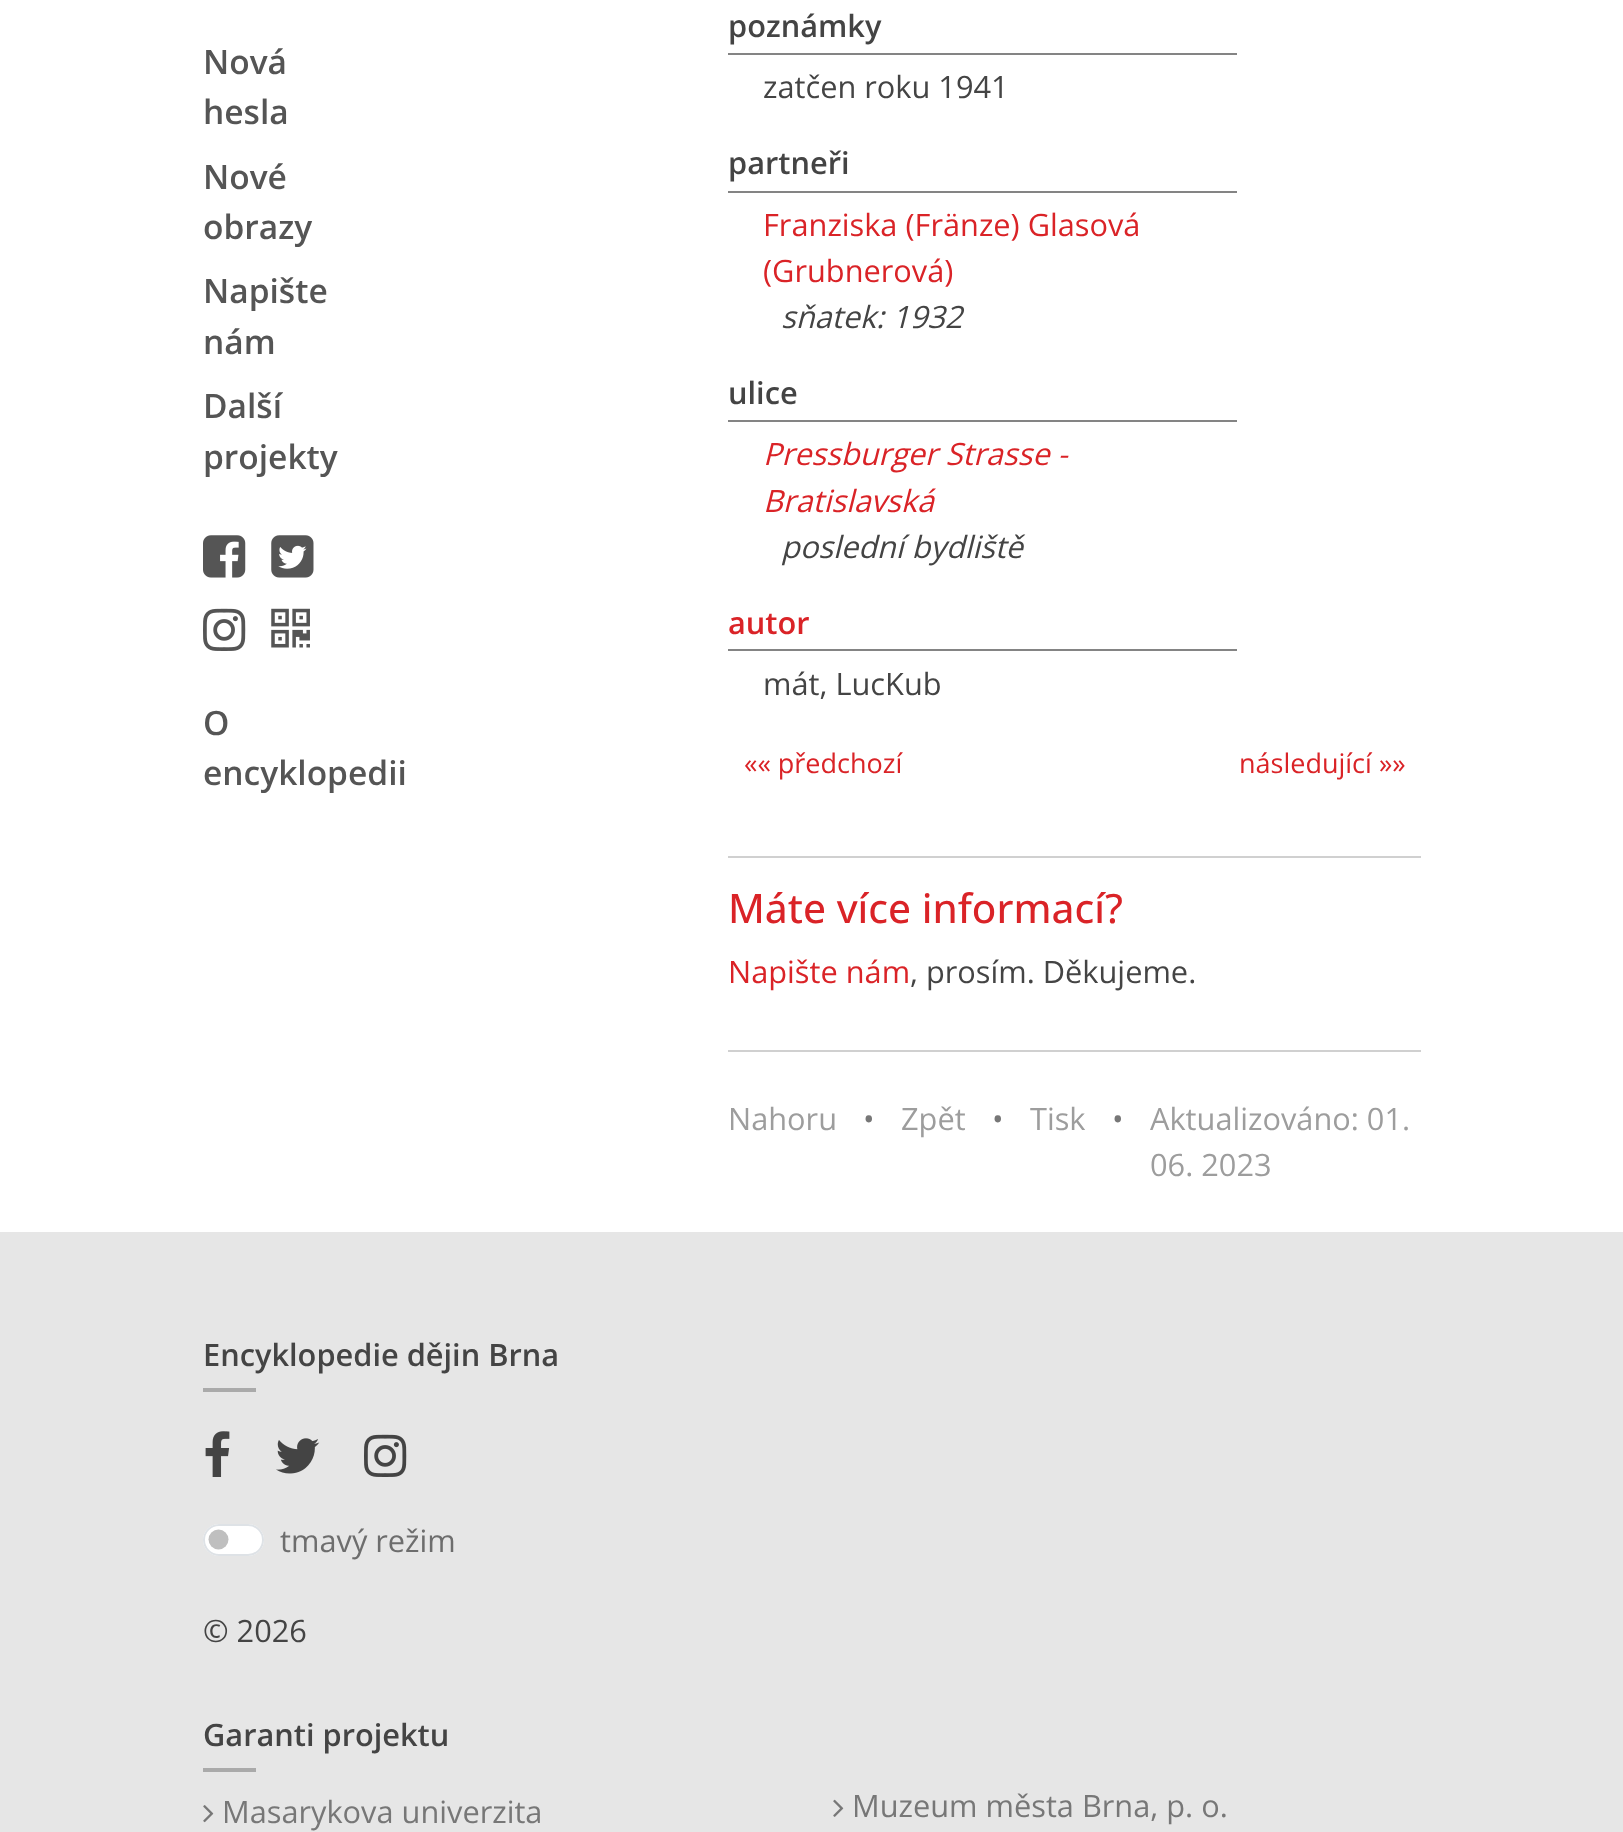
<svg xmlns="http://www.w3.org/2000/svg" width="1623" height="1832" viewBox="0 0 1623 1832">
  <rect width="100%" height="100%" fill="#ffffff"/>
  <text x="203" y="74" font-family="Open Sans" font-size="33.5" font-weight="600" fill="#555555">Nová</text>
  <text x="203" y="124" font-family="Open Sans" font-size="33.5" font-weight="600" fill="#555555">hesla</text>
  <text x="203" y="189" font-family="Open Sans" font-size="33.5" font-weight="600" fill="#555555">Nové</text>
  <text x="203" y="239" font-family="Open Sans" font-size="33.5" font-weight="600" fill="#555555">obrazy</text>
  <text x="203" y="303" font-family="Open Sans" font-size="33.5" font-weight="600" fill="#555555">Napište</text>
  <text x="203" y="354" font-family="Open Sans" font-size="33.5" font-weight="600" fill="#555555">nám</text>
  <text x="203" y="418" font-family="Open Sans" font-size="33.5" font-weight="600" fill="#555555">Další</text>
  <text x="203" y="469" font-family="Open Sans" font-size="33.5" font-weight="600" fill="#555555">projekty</text>
  <image x="203" y="535" width="43" height="43" href="img1.png"/>
  <image x="271" y="535" width="43" height="43" href="img2.png"/>
  <image x="203" y="608" width="43" height="43" href="img3.png"/>
  <image x="271" y="608" width="39" height="40" href="img4.png"/>
  <text x="203" y="735" font-family="Open Sans" font-size="33.5" font-weight="600" fill="#555555">O</text>
  <text x="203" y="785" font-family="Open Sans" font-size="33.5" font-weight="600" fill="#555555">encyklopedii</text>
  <rect x="728" y="53" width="509" height="2" fill="#848484"/>
  <text x="728" y="37" font-family="Open Sans" font-size="30.75" font-weight="600" fill="#444444">poznámky</text>
  <text x="763" y="98" font-family="Open Sans" font-size="30.75" fill="#444444">zatčen roku 1941</text>
  <rect x="728" y="191" width="509" height="2" fill="#848484"/>
  <text x="728" y="174" font-family="Open Sans" font-size="30.75" font-weight="600" fill="#444444">partneři</text>
  <text x="763" y="236" font-family="Open Sans" font-size="30.75" fill="#da2327">Franziska (Fränze) Glasová</text>
  <text x="763" y="282" font-family="Open Sans" font-size="30.75" fill="#da2327">(Grubnerová)</text>
  <text x="781" y="328" font-family="Open Sans" font-size="30.75" font-style="italic" fill="#444444">sňatek: 1932</text>
  <rect x="728" y="420" width="509" height="2" fill="#848484"/>
  <text x="728" y="404" font-family="Open Sans" font-size="30.75" font-weight="600" fill="#444444">ulice</text>
  <text x="763" y="465" font-family="Open Sans" font-size="30.75" font-style="italic" fill="#da2327">Pressburger Strasse -</text>
  <text x="763" y="512" font-family="Open Sans" font-size="30.75" font-style="italic" fill="#da2327">Bratislavská</text>
  <text x="781" y="558" font-family="Open Sans" font-size="30.75" font-style="italic" fill="#444444">poslední bydliště</text>
  <rect x="728" y="649" width="509" height="2" fill="#848484"/>
  <text x="728" y="634" font-family="Open Sans" font-size="30.75" font-weight="600" fill="#da2327">autor</text>
  <text x="763" y="695" font-family="Open Sans" font-size="30.75" fill="#444444">mát, LucKub</text>
  <text x="744" y="773" font-family="Open Sans" font-size="27" fill="#da2327">«« předchozí</text>
  <text x="1239" y="773" font-family="Open Sans" font-size="27" fill="#da2327">následující »»</text>
  <rect x="728" y="856" width="693" height="2" fill="#d0d0d0"/>
  <text x="728" y="923" font-family="Open Sans" font-size="40.5" font-weight="500" fill="#da2327">Máte více informací?</text>
  <text x="728" y="983" font-family="Open Sans" font-size="30.75" fill="#da2327">Napište nám</text>
  <text x="910" y="983" font-family="Open Sans" font-size="30.75" fill="#444444">, prosím. Děkujeme.</text>
  <rect x="728" y="1050" width="693" height="2" fill="#d0d0d0"/>
  <text x="728" y="1130" font-family="Open Sans" font-size="30.75" fill="#9d9d9d">Nahoru</text>
  <text x="863" y="1130" font-family="Open Sans" font-size="30.75" fill="#777777">•</text>
  <text x="901" y="1130" font-family="Open Sans" font-size="30.75" fill="#9d9d9d">Zpět</text>
  <text x="992" y="1130" font-family="Open Sans" font-size="30.75" fill="#777777">•</text>
  <text x="1030" y="1130" font-family="Open Sans" font-size="30.75" fill="#9d9d9d">Tisk</text>
  <text x="1112" y="1130" font-family="Open Sans" font-size="30.75" fill="#777777">•</text>
  <text x="1150" y="1130" font-family="Open Sans" font-size="30.75" fill="#9d9d9d">Aktualizováno: 01.</text>
  <text x="1150" y="1176" font-family="Open Sans" font-size="30.75" fill="#9d9d9d">06. 2023</text>
  <rect x="0" y="1232" width="1623" height="600" fill="#e6e6e6"/>
  <text x="203" y="1366" font-family="Open Sans" font-size="30.75" font-weight="600" fill="#444444">Encyklopedie dějin Brna</text>
  <rect x="203" y="1388" width="53" height="4" fill="#aaaaaa"/>
  <image x="205" y="1431" width="25" height="46" href="img5.png"/>
  <image x="276" y="1438" width="44" height="36" href="img6.png"/>
  <image x="364" y="1434" width="43" height="43" href="img7.png"/>
  <rect x="203" y="1524" width="61" height="32" rx="16" fill="#ffffff"/>
  <circle cx="218.5" cy="1539.5" r="10" fill="#bfbfbf"/>
  <rect x="204" y="1525" width="59" height="30" rx="15" fill="none" stroke="#dee2e6" stroke-width="2"/>
  <text x="280" y="1552" font-family="Open Sans" font-size="30.75" fill="#6d6d6d">tmavý režim</text>
  <text x="203" y="1642" font-family="Open Sans" font-size="30.75" fill="#444444">© 2026</text>
  <text x="203" y="1746" font-family="Open Sans" font-size="30.75" font-weight="600" fill="#444444">Garanti projektu</text>
  <rect x="203" y="1768" width="53" height="4" fill="#aaaaaa"/>
  <image x="203" y="1805" width="11" height="18" href="img8.png"/>
  <text x="222" y="1823" font-family="Open Sans" font-size="30.75" fill="#777777">Masarykova univerzita</text>
  <image x="833" y="1799" width="11" height="18" href="img9.png"/>
  <text x="852" y="1817" font-family="Open Sans" font-size="30.75" fill="#777777">Muzeum města Brna, p. o.</text>
</svg>
